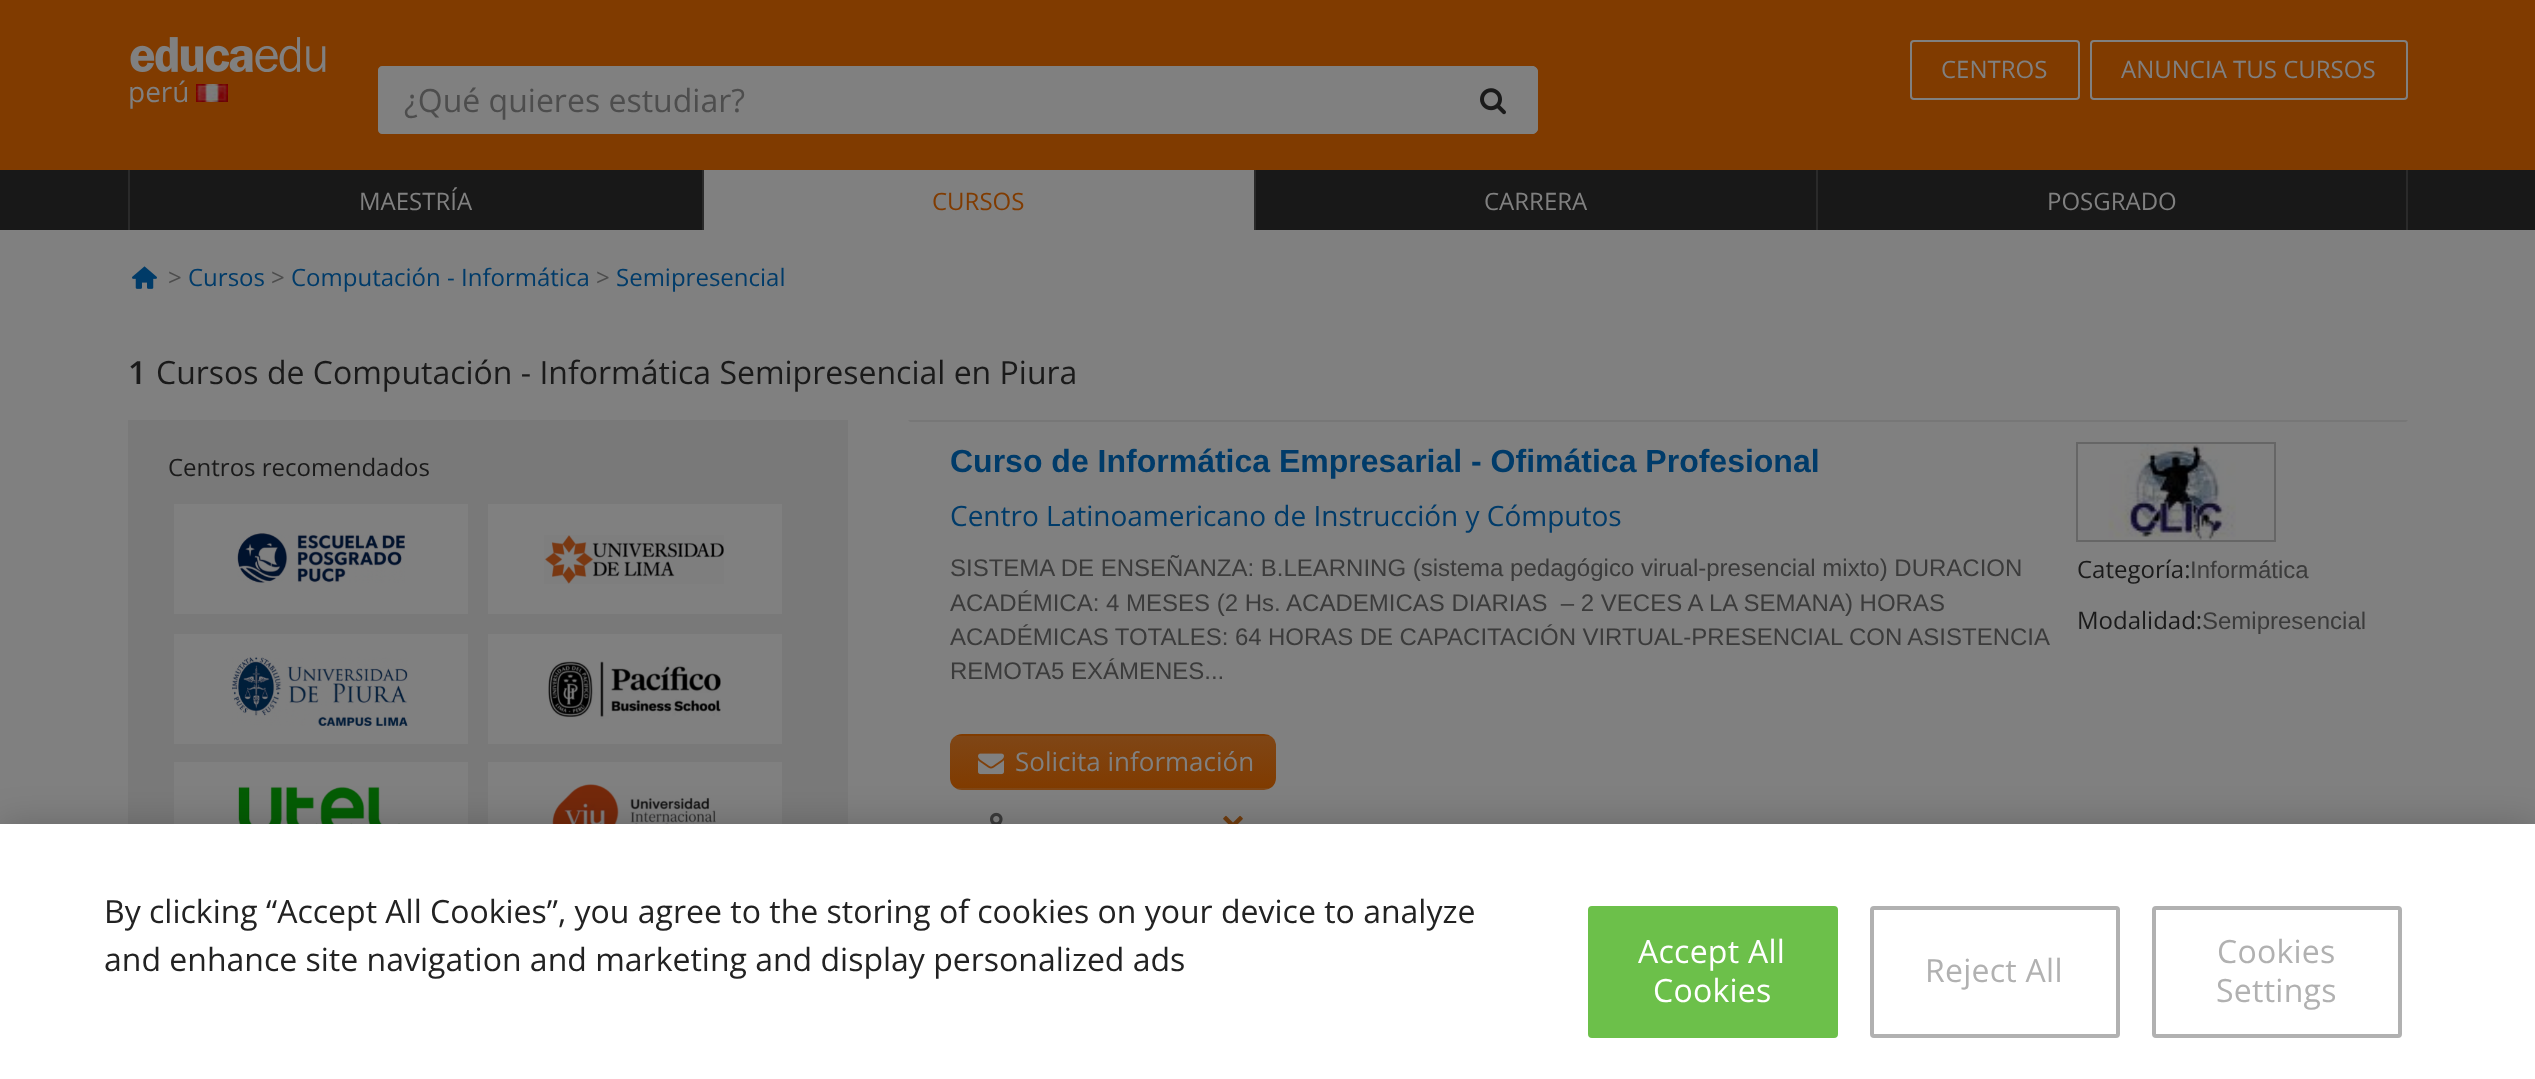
<svg xmlns="http://www.w3.org/2000/svg" width="2535" height="1079" viewBox="0 0 2535 1079">
  <defs>
    <clipPath id="clip1"><rect x="950" y="734" width="326" height="56" rx="12"/></clipPath>
    <linearGradient id="g1" gradientUnits="userSpaceOnUse" x1="1113" y1="684" x2="1113" y2="736"><stop offset="0" stop-color="#7f4616"/><stop offset="1" stop-color="#803b00"/></linearGradient>
    <linearGradient id="g2" gradientUnits="userSpaceOnUse" x1="1113" y1="736" x2="1113" y2="788"><stop offset="0" stop-color="#7f4616"/><stop offset="1" stop-color="#803b00"/></linearGradient>
    <linearGradient id="g3" gradientUnits="userSpaceOnUse" x1="1113" y1="788" x2="1113" y2="840"><stop offset="0" stop-color="#7f4616"/><stop offset="1" stop-color="#803b00"/></linearGradient>
    <filter id="blur1" x="-50%" y="-200%" width="200%" height="500%"><feGaussianBlur stdDeviation="18"/></filter>
  </defs>
  <rect width="100%" height="100%" fill="#808080"/>
  <rect x="0" y="0" width="2535" height="170" fill="#803b00"/>
  <rect x="1911" y="41" width="168" height="58" rx="3" fill="none" stroke="#808080" stroke-width="2"/>
  <text x="1941" y="78" font-family="Open Sans" font-size="24" fill="#808080">CENTROS</text>
  <rect x="2091" y="41" width="316" height="58" rx="3" fill="none" stroke="#808080" stroke-width="2"/>
  <text x="2121" y="78" font-family="Open Sans" font-size="24" fill="#808080">ANUNCIA TUS CURSOS</text>
  <image x="130" y="37" width="196" height="35" href="img1.png"/>
  <text x="128" y="102" font-family="Open Sans" font-size="28" fill="#808080">perú</text>
  <image x="196" y="84" width="32" height="18" href="img2.png"/>
  <path d="M382 67H1447V133H382C380.5 133 379 131.5 379 130V70C379 68.5 380.5 67 382 67Z" fill="#808080" stroke="#808080" stroke-width="2"/>
  <text x="404" y="112" font-family="Open Sans" font-size="32" fill="#4d4d4d">¿Qué quieres estudiar?</text>
  <path d="M1446 66H1532C1535.5 66 1538 68.5 1538 72V128C1538 131.5 1535.5 134 1532 134H1446Z" fill="#808080"/>
  <path d="M1446 66L1448 68H1532L1535 69L1536 68C1535 67 1534 66 1532 66Z" fill="#808080"/>
  <path d="M1538 128V72C1538 70 1537 69 1536 68L1535 69L1536 72V128L1535 131L1536 132C1537 131 1538 130 1538 128Z" fill="#808080"/>
  <path d="M1532 134C1534 134 1535 133 1536 132L1535 131L1532 132H1448L1446 134Z" fill="#808080"/>
  <image x="1480" y="88" width="26" height="27" href="img3.png"/>
  <rect x="0" y="170" width="2535" height="60" fill="#181818"/>
  <rect x="702" y="170" width="2" height="60" fill="#2a2a2a"/>
  <rect x="128" y="170" width="2" height="60" fill="#2a2a2a"/>
  <text x="359" y="210" font-family="Open Sans" font-size="24" fill="#808080">MAESTRÍA</text>
  <rect x="1254" y="170" width="2" height="60" fill="#2a2a2a"/>
  <rect x="704" y="170" width="550" height="60" fill="#808080"/>
  <text x="932" y="210" font-family="Open Sans" font-size="24" fill="#803b00">CURSOS</text>
  <rect x="1816" y="170" width="2" height="60" fill="#2a2a2a"/>
  <text x="1484" y="210" font-family="Open Sans" font-size="24" fill="#808080">CARRERA</text>
  <rect x="2406" y="170" width="2" height="60" fill="#2a2a2a"/>
  <text x="2047" y="210" font-family="Open Sans" font-size="24" fill="#808080">POSGRADO</text>
  <image x="132" y="266" width="25" height="23" href="img4.png"/>
  <text x="168" y="286" font-family="Open Sans" font-size="24" fill="#4d4d4d">&gt;</text>
  <text x="188" y="286" font-family="Open Sans" font-size="24" fill="#003b69">Cursos</text>
  <text x="271" y="286" font-family="Open Sans" font-size="24" fill="#4d4d4d">&gt;</text>
  <text x="291" y="286" font-family="Open Sans" font-size="24" fill="#003b69">Computación - Informática</text>
  <text x="596" y="286" font-family="Open Sans" font-size="24" fill="#4d4d4d">&gt;</text>
  <text x="616" y="286" font-family="Open Sans" font-size="24" fill="#003b69">Semipresencial</text>
  <text x="128" y="384" font-family="Open Sans" font-size="32" font-weight="600" fill="#1a1a1a">1</text>
  <text x="156" y="384" font-family="Open Sans" font-size="32" fill="#1a1a1a">Cursos de Computación - Informática Semipresencial en Piura</text>
  <rect x="128" y="420" width="720" height="404" fill="#797979"/>
  <text x="168" y="476" font-family="Open Sans" font-size="24" fill="#1a1a1a">Centros recomendados</text>
  <rect x="174" y="504" width="294" height="110" fill="#808080"/>
  <image x="237" y="533" width="168" height="50" href="img5.png"/>
  <rect x="488" y="504" width="294" height="110" fill="#808080"/>
  <image x="544" y="535" width="180" height="49" href="img6.png"/>
  <rect x="174" y="634" width="294" height="110" fill="#808080"/>
  <image x="232" y="657" width="176" height="69" href="img7.png"/>
  <rect x="488" y="634" width="294" height="110" fill="#808080"/>
  <image x="548" y="661" width="173" height="58" href="img8.png"/>
  <rect x="174" y="762" width="294" height="62" fill="#808080"/>
  <image x="238" y="786" width="168" height="38" href="img9.png"/>
  <rect x="488" y="762" width="294" height="62" fill="#808080"/>
  <image x="552" y="784" width="164" height="40" href="img10.png"/>
  <path d="M908 420H2408L2406 422H910Z" fill="#777777"/>
  <text x="950" y="472" font-family="Liberation Sans" font-size="32" font-weight="bold" fill="#003b69">Curso de Informática Empresarial - Ofimática Profesional</text>
  <text x="950" y="526" font-family="Open Sans" font-size="28" fill="#003b69">Centro Latinoamericano de Instrucción y Cómputos</text>
  <rect x="2077" y="443" width="198" height="98" fill="none" stroke="#666666" stroke-width="2"/>
  <image x="2108" y="444" width="128" height="96" href="img11.png"/>
  <text x="950" y="576" font-family="Liberation Sans" font-size="24" fill="#3b3b3b">SISTEMA DE ENSEÑANZA: B.LEARNING (sistema pedagógico virual-presencial mixto) DURACION</text>
  <text x="950" y="611" font-family="Liberation Sans" font-size="24" fill="#3b3b3b" xml:space="preserve">ACADÉMICA: 4 MESES (2 Hs. ACADEMICAS DIARIAS  – 2 VECES A LA SEMANA) HORAS</text>
  <text x="950" y="645" word-spacing="-0.25" font-family="Liberation Sans" font-size="24" fill="#3b3b3b">ACADÉMICAS TOTALES: 64 HORAS DE CAPACITACIÓN VIRTUAL-PRESENCIAL CON ASISTENCIA</text>
  <text x="950" y="679" font-family="Liberation Sans" font-size="24" fill="#3b3b3b">REMOTA5 EXÁMENES...</text>
  <text x="2077" y="578" font-family="Open Sans" font-size="24" fill="#1a1a1a">Categoría:</text>
  <text x="2190" y="578" font-family="Liberation Sans" font-size="24" fill="#3b3b3b">Informática</text>
  <text x="2077" y="629" font-family="Open Sans" font-size="24" fill="#1a1a1a">Modalidad:</text>
  <text x="2202" y="629" font-family="Liberation Sans" font-size="24" fill="#3b3b3b">Semipresencial</text>
  <g clip-path="url(#clip1)">
    <rect x="950" y="734" width="326" height="2" fill="url(#g1)"/>
    <rect x="950" y="736" width="326" height="52" fill="url(#g2)"/>
    <rect x="950" y="788" width="326" height="2" fill="url(#g3)"/>
  </g>
  <image x="978" y="753" width="26" height="22" href="img12.png"/>
  <text x="1015" y="771" font-family="Open Sans" font-size="26" fill="#808080">Solicita información</text>
  <image x="990" y="812" width="13" height="12" href="img13.png"/>
  <image x="1223" y="815" width="20" height="9" href="img14.png"/>
  <rect x="0" y="824" width="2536" height="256" fill="#000000" fill-opacity="0.2" filter="url(#blur1)"/>
  <rect x="0" y="824" width="2535" height="255" fill="#ffffff"/>
  <text x="104" y="923" font-family="Open Sans" font-size="32" fill="#222222">By clicking “Accept All Cookies”, you agree to the storing of cookies on your device to analyze</text>
  <text x="104" y="971" font-family="Open Sans" font-size="32" fill="#222222">and enhance site navigation and marketing and display personalized ads</text>
  <rect x="1589" y="907" width="248" height="130" rx="3" fill="#6cc04a" stroke="#6cc04a" stroke-width="2"/>
  <text x="1638" y="963" font-family="Open Sans" font-size="32" letter-spacing="0.25" fill="#ffffff">Accept All</text>
  <text x="1653" y="1002" font-family="Open Sans" font-size="32" letter-spacing="0.25" fill="#ffffff">Cookies</text>
  <rect x="1872" y="908" width="246" height="128" rx="2" fill="none" stroke="#b1b1b1" stroke-width="4"/>
  <text x="1925" y="982" font-family="Open Sans" font-size="32" letter-spacing="0.25" fill="#b1b1b1">Reject All</text>
  <rect x="2154" y="908" width="246" height="128" rx="2" fill="none" stroke="#b1b1b1" stroke-width="4"/>
  <text x="2217" y="963" font-family="Open Sans" font-size="32" letter-spacing="0.25" fill="#b1b1b1">Cookies</text>
  <text x="2216" y="1002" font-family="Open Sans" font-size="32" letter-spacing="0.25" fill="#b1b1b1">Settings</text>
</svg>
